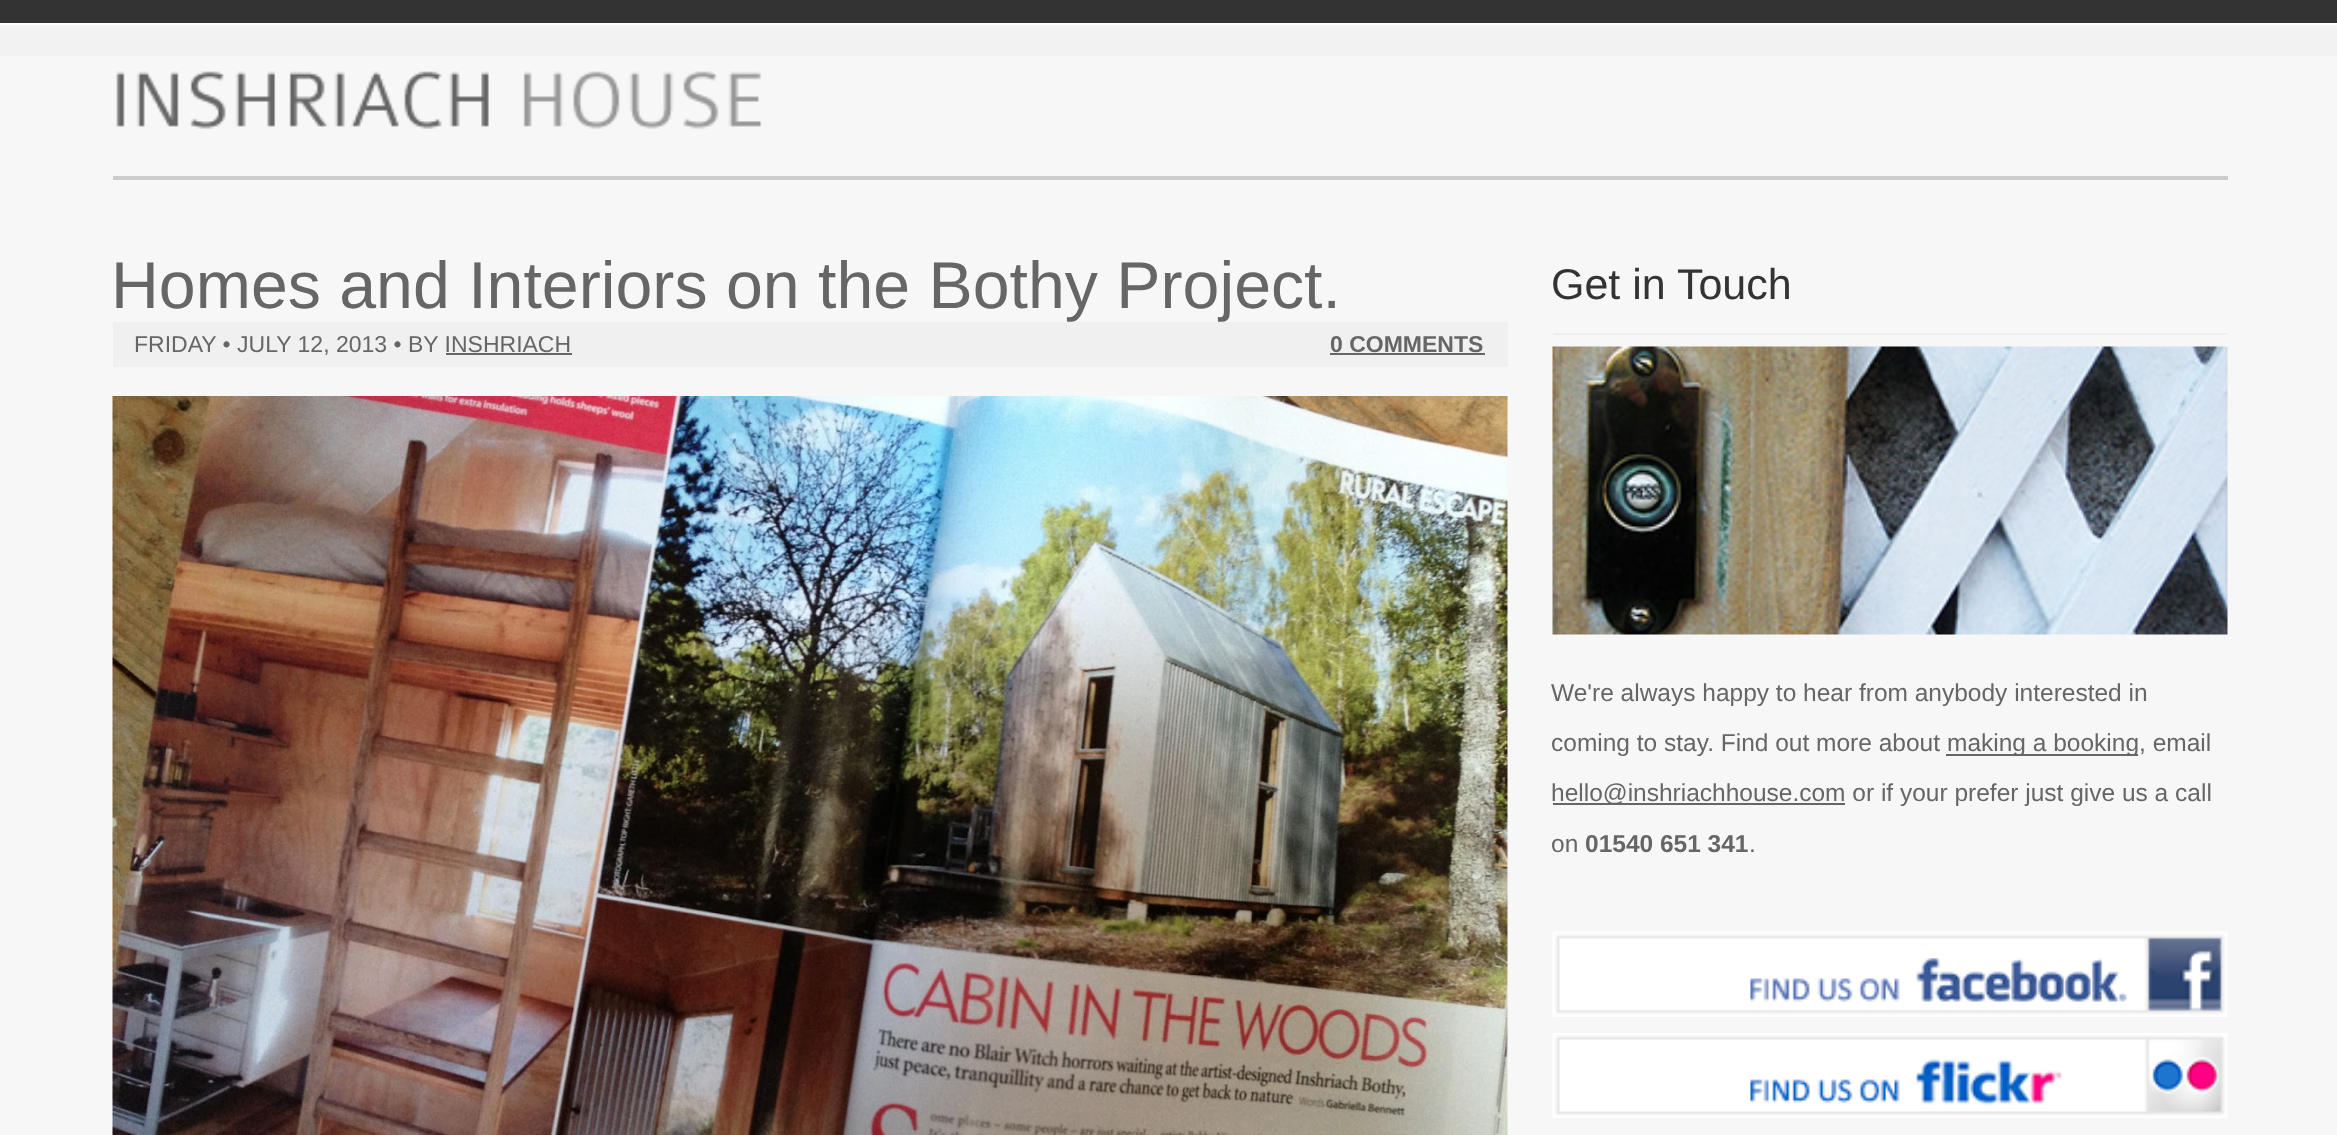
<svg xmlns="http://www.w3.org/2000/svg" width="2337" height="1135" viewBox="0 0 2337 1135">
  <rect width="100%" height="100%" fill="#333333"/>
  <rect x="0" y="56" width="2337" height="1079" fill="#f7f7f7"/>
  <rect x="0" y="25" width="2337" height="31" fill="#f2f2f2"/>
  <rect x="0" y="23" width="2337" height="2" fill="#ffffff"/>
  <image x="116" y="71" width="646" height="58" href="img1.png"/>
  <rect x="113" y="176" width="2115" height="4" fill="#cccccc"/>
  <text x="111" y="308" font-family="Liberation Sans" font-size="66.25" fill="#666666">Homes and Interiors on the Bothy Project.</text>
  <rect x="113" y="322" width="1395" height="45" fill="#f0f0f0"/>
  <text x="134" y="352" font-family="Liberation Sans" font-size="23" fill="#666666">FRIDAY • JULY 12, 2013 • BY INSHRIACH</text>
  <text x="1330" y="352" font-family="Liberation Sans" font-size="23" font-weight="bold" fill="#666666">0 COMMENTS</text>
  <rect x="1330" y="353" width="155" height="2" fill="#666666"/>
  <rect x="446" y="353" width="126" height="2" fill="#666666"/>
  <image x="112" y="396" width="1396" height="739" href="img2.png"/>
  <rect x="1553" y="333" width="675" height="2" fill="#eeeeee"/>
  <text x="1551" y="299" font-family="Liberation Sans" font-size="43" fill="#333333">Get in Touch</text>
  <image x="1552" y="346" width="676" height="289" href="img3.png"/>
  <text x="1551" y="701" font-family="Liberation Sans" font-size="24.5" fill="#666666">We're always happy to hear from anybody interested in</text>
  <text x="1551" y="751" font-family="Liberation Sans" font-size="24.5" fill="#666666">coming to stay. Find out more about</text>
  <rect x="1946" y="754" width="192" height="2" fill="#666666"/>
  <text x="1947" y="751" font-family="Liberation Sans" font-size="24.5" fill="#666666">making a booking, email</text>
  <rect x="1553" y="803" width="292" height="2" fill="#666666"/>
  <text x="1551" y="801" font-family="Liberation Sans" font-size="24.5" fill="#666666">hello@inshriachhouse.com or if your prefer just give us a call</text>
  <text x="1551" y="852" font-family="Liberation Sans" font-size="24.5" fill="#666666">on</text>
  <text x="1585" y="852" font-family="Liberation Sans" font-size="24.5" font-weight="bold" fill="#666666">01540 651 341</text>
  <text x="1749" y="852" font-family="Liberation Sans" font-size="24.5" fill="#666666">.</text>
  <image x="1552" y="931" width="676" height="86" href="img4.png"/>
  <image x="1552" y="1033" width="676" height="85" href="img5.png"/>
</svg>
